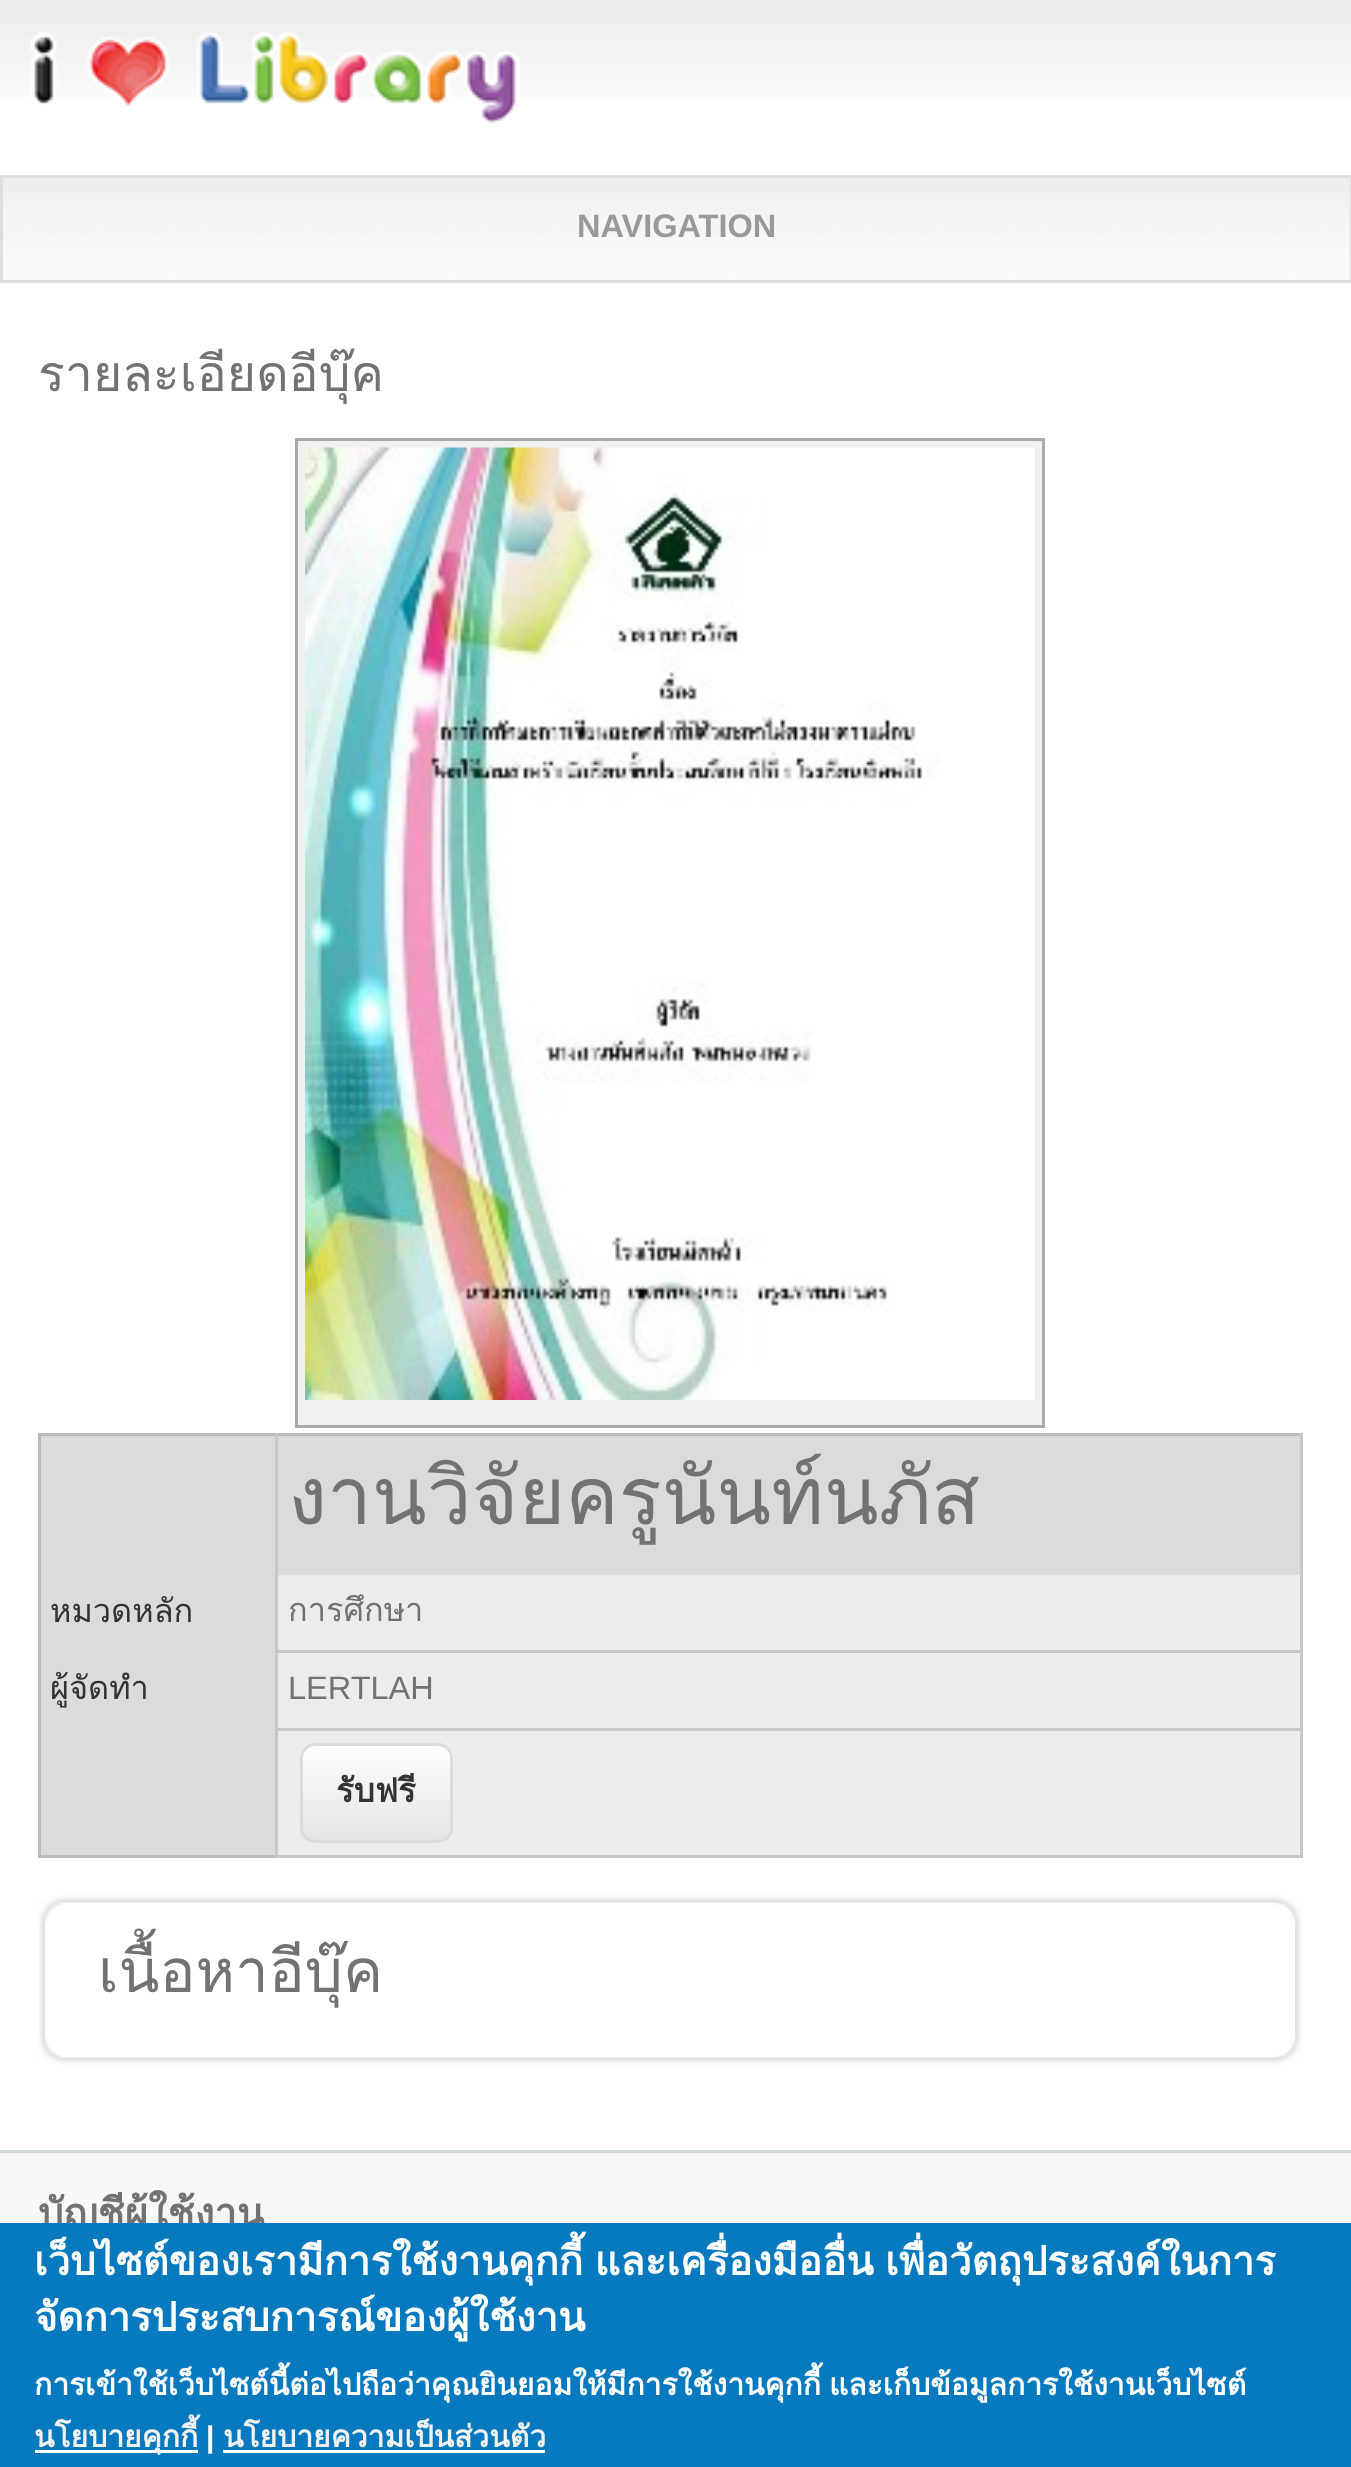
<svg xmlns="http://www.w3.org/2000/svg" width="1351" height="2467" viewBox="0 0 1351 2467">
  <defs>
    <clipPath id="clip1"><rect x="300" y="1743" width="153" height="100" rx="15"/></clipPath>
    <linearGradient id="g1" gradientUnits="userSpaceOnUse" x1="376" y1="1745" x2="376" y2="1840"><stop offset="0" stop-color="#ffffff"/><stop offset="1" stop-color="#e3e3e3"/></linearGradient>
  </defs>
  <rect width="100%" height="100%" fill="#ffffff"/>
  <image x="0" y="0" width="1351" height="97" href="img1.png"/>
  <image x="30" y="32" width="490" height="92" href="img2.png"/>
  <image x="3" y="178" width="1347" height="102" href="img3.png"/>
  <rect x="1.5" y="176.5" width="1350" height="105" fill="none" stroke="#dedede" stroke-width="3"/>
  <text x="577" y="237" font-family="Liberation Sans" font-size="32.5" font-weight="bold" fill="#999999">NAVIGATION</text>
  <text x="38" y="391" font-family="Loma" font-size="50" fill="#727272">รายละเอียดอีบุ๊ค</text>
  <rect x="296.5" y="439.5" width="747" height="987" fill="#f0f0f0" stroke="#aaaaaa" stroke-width="3"/>
  <image x="305" y="447" width="730" height="953" href="img4.png"/>
  <rect x="278" y="1575" width="1022" height="280" fill="#ececec"/>
  <rect x="38" y="1433" width="1265" height="3" fill="#bbbbbb"/>
  <rect x="38" y="1855" width="237" height="3" fill="#bbbbbb"/>
  <rect x="38" y="1433" width="3" height="425" fill="#bbbbbb"/>
  <rect x="41" y="1436" width="234" height="419" fill="#dbdbdb"/>
  <rect x="278" y="1436" width="1022" height="139" fill="#dbdbdb"/>
  <text x="288" y="1524" font-family="Loma" font-size="80" fill="#727272">งานวิจัยครูนันท์นภัส</text>
  <rect x="1300" y="1433" width="3" height="425" fill="#c8c7c7"/>
  <rect x="275" y="1855" width="1028" height="3" fill="#c8c7c7"/>
  <rect x="275" y="1728" width="3" height="130" fill="#c8c7c7"/>
  <rect x="275" y="1728" width="1028" height="3" fill="#c8c7c7"/>
  <rect x="275" y="1650" width="3" height="80" fill="#c8c7c7"/>
  <rect x="275" y="1650" width="1028" height="3" fill="#c8c7c7"/>
  <rect x="275" y="1433" width="3" height="220" fill="#c8c7c7"/>
  <text x="50" y="1622" font-family="Loma" font-size="32.5" fill="#333333">หมวดหลัก</text>
  <text x="288" y="1621" font-family="Loma" font-size="32.5" fill="#727272">การศึกษา</text>
  <text x="50" y="1699" font-family="Loma" font-size="32.5" fill="#333333">ผู้จัดทำ</text>
  <text x="288" y="1699" font-family="Liberation Sans" font-size="32.5" fill="#727272">LERTLAH</text>
  <g clip-path="url(#clip1)">
    <rect x="300" y="1745" width="153" height="95" fill="url(#g1)"/>
  </g>
  <path d="M315 1748H438C444 1748 450 1753 450 1760V1758C450 1751 444 1745 437 1745H316C310 1745 305 1749 304 1754C306 1750 310 1748 315 1748Z" fill="#ffffff"/>
  <rect x="301.5" y="1744.5" width="150" height="97" rx="13.5" fill="none" stroke="#dbdbdb" stroke-width="3"/>
  <text x="336" y="1802" font-family="Loma" font-size="33" font-weight="bold" fill="#333333">รับฟรี</text>
  <image x="37" y="1895" width="1266" height="8" href="img5.png"/>
  <image x="37" y="1895" width="28" height="28" href="img6.png"/>
  <image x="1275" y="1895" width="28" height="28" href="img7.png"/>
  <image x="38" y="1922" width="7" height="116" href="img8.png"/>
  <image x="1295" y="1922" width="7" height="116" href="img9.png"/>
  <text x="98" y="1992" font-family="Loma" font-size="60" fill="#727272">เนื้อหาอีบุ๊ค</text>
  <image x="37" y="2057" width="1266" height="8" href="img10.png"/>
  <image x="37" y="2037" width="28" height="28" href="img11.png"/>
  <image x="1275" y="2037" width="28" height="28" href="img12.png"/>
  <rect x="0" y="2153" width="1351" height="70" fill="#f8f8f8"/>
  <rect x="0" y="2150" width="1351" height="3" fill="#cfd7db"/>
  <text x="38" y="2227" font-family="Loma" font-size="40" font-weight="bold" fill="#727272">บัญชีผู้ใช้งาน</text>
  <rect x="0" y="2223" width="1351" height="244" fill="#0779bf"/>
  <text x="34" y="2275" word-spacing="-2" font-family="Loma" font-size="40" font-weight="bold" fill="#ffffff">เว็บไซต์ของเรามีการใช้งานคุกกี้ และเครื่องมืออื่น เพื่อวัตถุประสงค์ในการ</text>
  <text x="34" y="2331" font-family="Loma" font-size="40" font-weight="bold" fill="#ffffff">จัดการประสบการณ์ของผู้ใช้งาน</text>
  <text x="34" y="2395" word-spacing="-2" font-family="Loma" font-size="30" font-weight="bold" fill="#ffffff">การเข้าใช้เว็บไซต์นี้ต่อไปถือว่าคุณยินยอมให้มีการใช้งานคุกกี้ และเก็บข้อมูลการใช้งานเว็บไซต์</text>
  <rect x="35" y="2450" width="163" height="3" fill="#ffffff"/>
  <text x="34" y="2447" font-family="Loma" font-size="30" font-weight="bold" fill="#f2f2f2">นโยบายคุกกี้</text>
  <text x="206" y="2447" font-family="Liberation Sans" font-size="30" font-weight="bold" fill="#ffffff">|</text>
  <rect x="223" y="2450" width="322" height="3" fill="#ffffff"/>
  <text x="223" y="2447" font-family="Loma" font-size="30" font-weight="bold" fill="#f2f2f2">นโยบายความเป็นส่วนตัว</text>
</svg>
